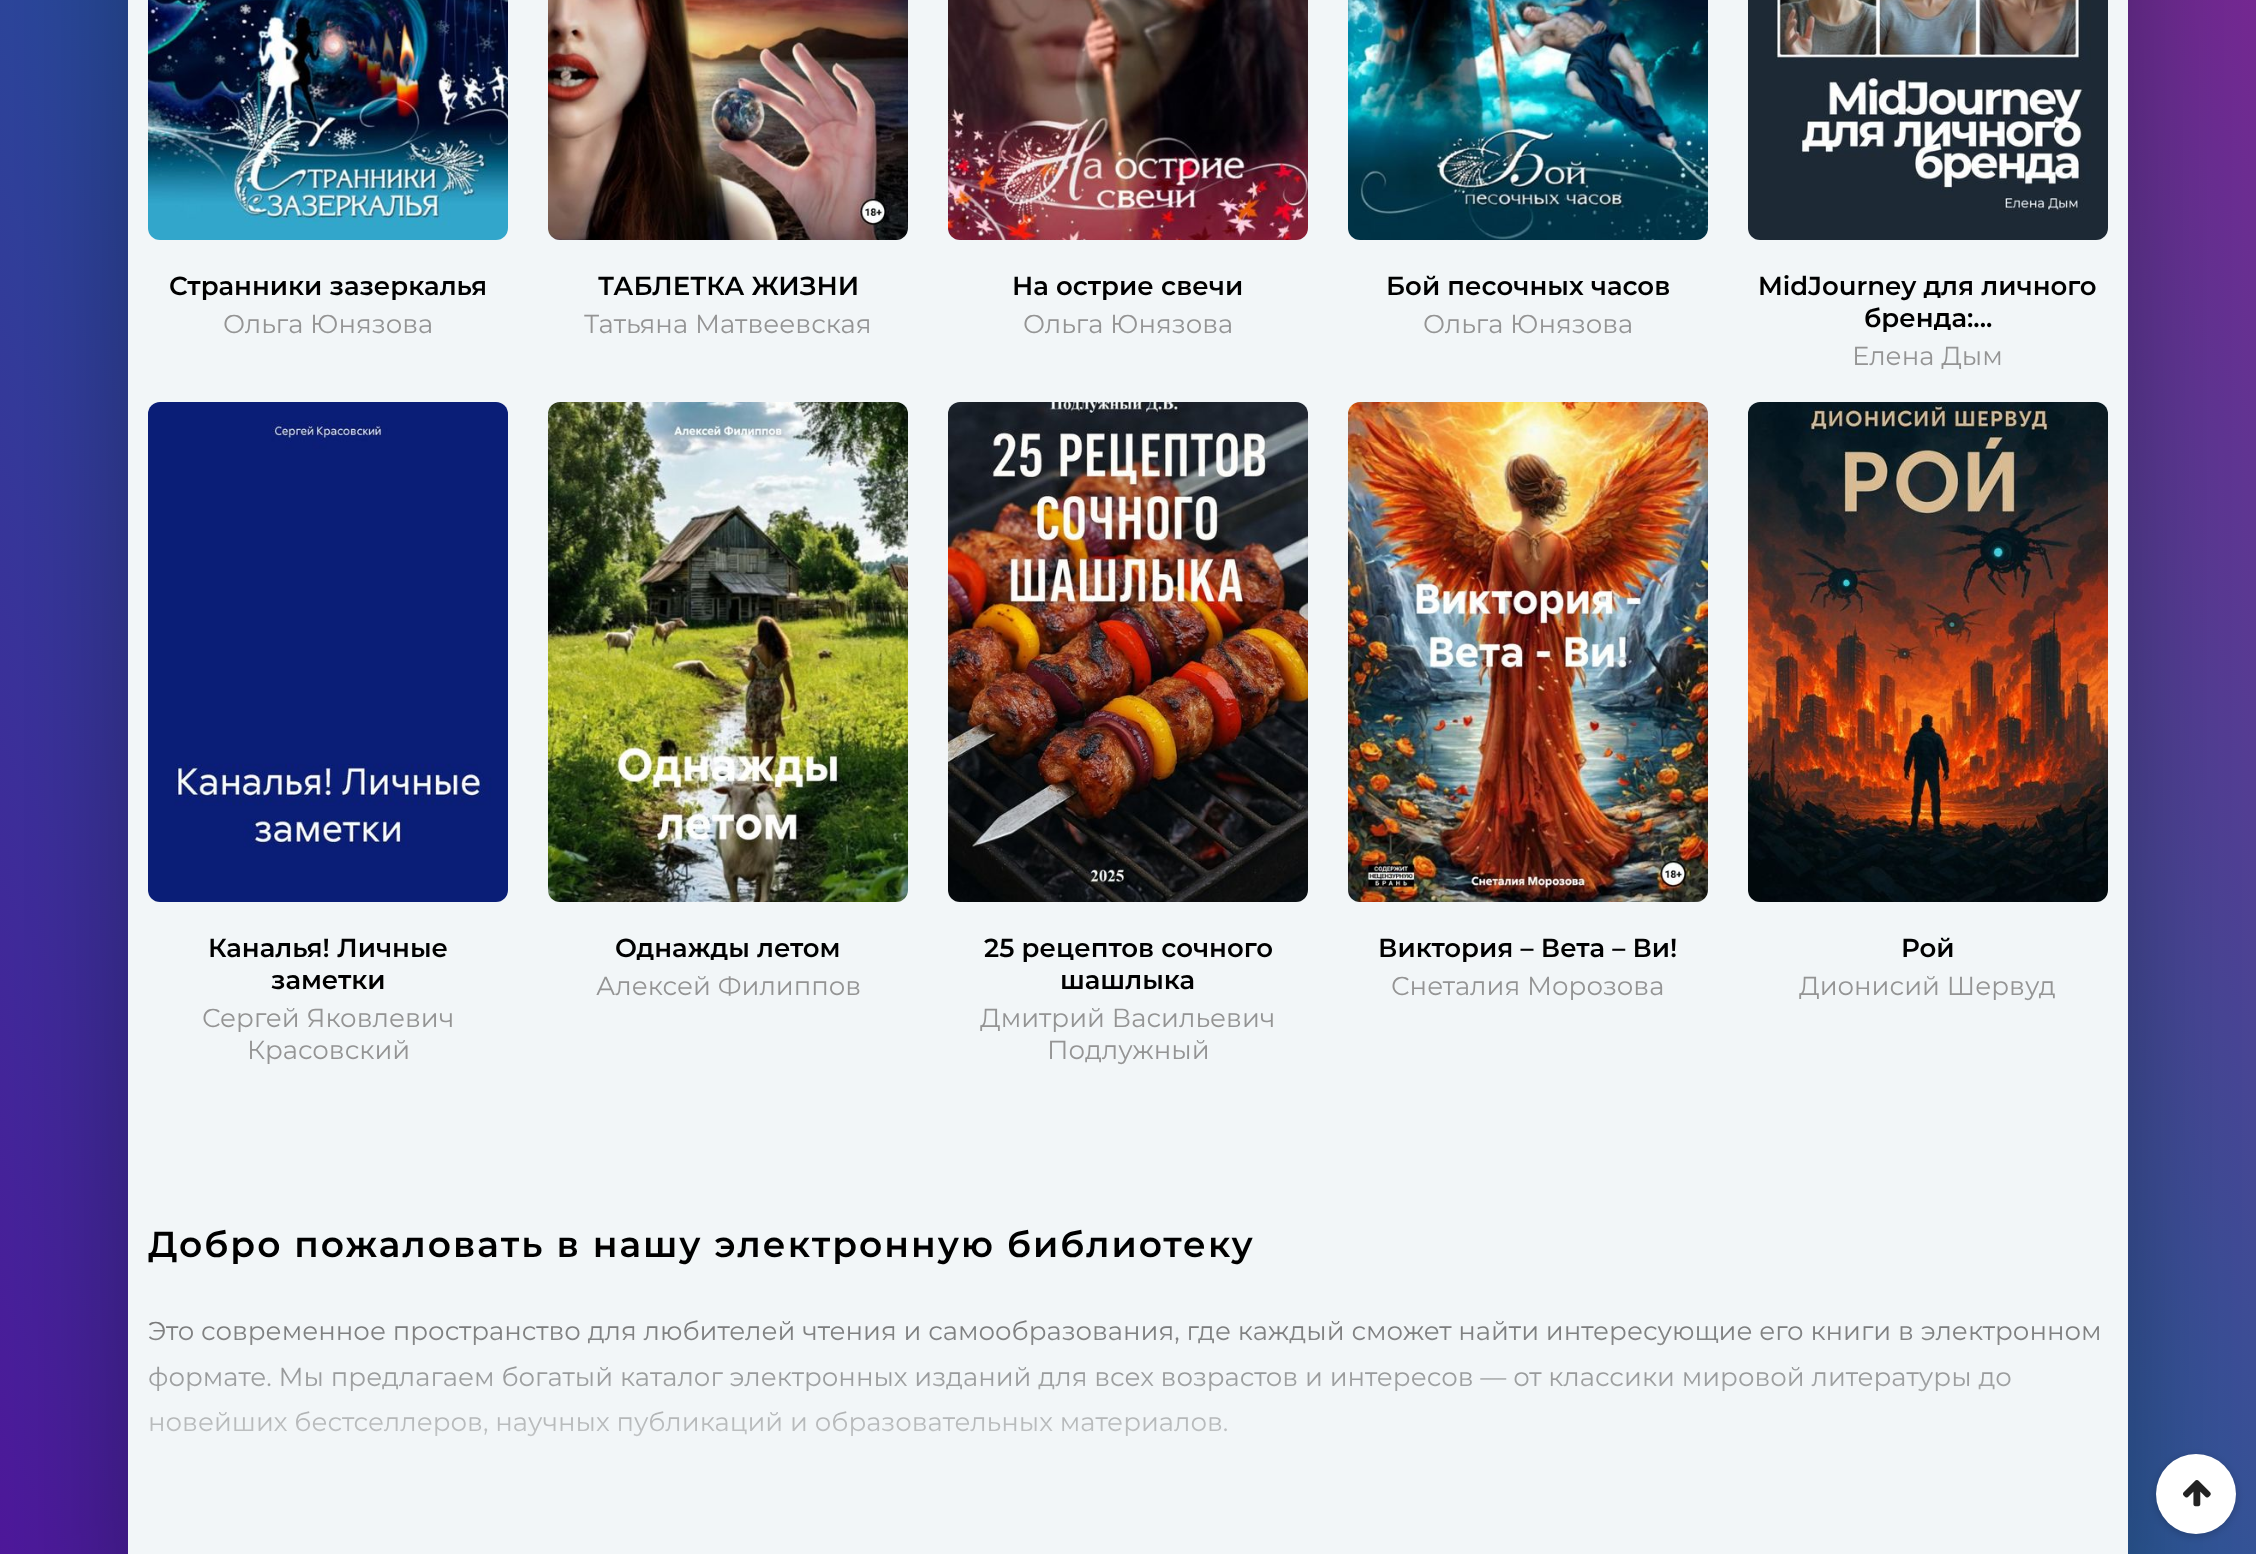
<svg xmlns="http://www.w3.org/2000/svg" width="2256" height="1554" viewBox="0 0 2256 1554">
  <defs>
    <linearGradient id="g1" gradientUnits="userSpaceOnUse" x1="-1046" y1="91" x2="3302" y2="-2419"><stop offset="0" stop-color="#550d9a"/><stop offset="0.33" stop-color="#0d6d9a"/><stop offset="0.67" stop-color="#9a0d8e"/><stop offset="1" stop-color="#9a650d"/></linearGradient>
    <filter id="blur1" x="-50%" y="-200%" width="200%" height="500%"><feGaussianBlur stdDeviation="60"/></filter>
    <linearGradient id="g2" gradientUnits="userSpaceOnUse" x1="1128" y1="1276" x2="1128" y2="1516"><stop offset="0" stop-color="#f2f6f8" stop-opacity="0"/><stop offset="1" stop-color="#f2f6f8"/></linearGradient>
    <filter id="blur2" x="-50%" y="-200%" width="200%" height="500%"><feGaussianBlur stdDeviation="4"/></filter>
  </defs>
  <rect width="100%" height="100%" fill="#ffffff"/>
  <rect x="0" y="0" width="2256" height="1554" fill="url(#g1)"/>
  <rect x="128" y="-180" width="2000" height="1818" fill="#000000" fill-opacity="0.3" filter="url(#blur1)"/>
  <rect x="128" y="0" width="2000" height="1554" fill="#f2f6f8"/>
  <image x="148" y="0" width="360" height="240" href="img1.png"/>
  <text x="169" y="295" font-family="Montserrat" font-size="26" font-weight="600" fill="#000000">Странники зазеркалья</text>
  <text x="223" y="333" font-family="Montserrat" font-size="26" fill="#949494">Ольга Юнязова</text>
  <image x="548" y="0" width="360" height="240" href="img2.png"/>
  <text x="598" y="295" font-family="Montserrat" font-size="26" font-weight="600" fill="#000000">ТАБЛЕТКА ЖИЗНИ</text>
  <text x="584" y="333" font-family="Montserrat" font-size="26" fill="#949494">Татьяна Матвеевская</text>
  <image x="948" y="0" width="360" height="240" href="img3.png"/>
  <text x="1012" y="295" font-family="Montserrat" font-size="26" font-weight="600" fill="#000000">На острие свечи</text>
  <text x="1023" y="333" font-family="Montserrat" font-size="26" fill="#949494">Ольга Юнязова</text>
  <image x="1348" y="0" width="360" height="240" href="img4.png"/>
  <text x="1386" y="295" font-family="Montserrat" font-size="26" font-weight="600" fill="#000000">Бой песочных часов</text>
  <text x="1423" y="333" font-family="Montserrat" font-size="26" fill="#949494">Ольга Юнязова</text>
  <image x="1748" y="0" width="360" height="240" href="img5.png"/>
  <text x="1758" y="295" font-family="Montserrat" font-size="26" font-weight="600" fill="#000000">MidJourney для личного</text>
  <text x="1864" y="327" font-family="Montserrat" font-size="26" font-weight="600" fill="#000000">бренда:...</text>
  <text x="1852" y="365" font-family="Montserrat" font-size="26" fill="#949494">Елена Дым</text>
  <image x="148" y="402" width="360" height="500" href="img6.png"/>
  <text x="208" y="957" font-family="Montserrat" font-size="26" font-weight="600" fill="#000000">Каналья! Личные</text>
  <text x="271" y="989" font-family="Montserrat" font-size="26" font-weight="600" fill="#000000">заметки</text>
  <text x="202" y="1027" font-family="Montserrat" font-size="26" fill="#949494">Сергей Яковлевич</text>
  <text x="247" y="1059" font-family="Montserrat" font-size="26" fill="#949494">Красовский</text>
  <image x="548" y="402" width="360" height="500" href="img7.png"/>
  <text x="615" y="957" font-family="Montserrat" font-size="26" font-weight="600" fill="#000000">Однажды летом</text>
  <text x="596" y="995" font-family="Montserrat" font-size="26" fill="#949494">Алексей Филиппов</text>
  <image x="948" y="402" width="360" height="500" href="img8.png"/>
  <text x="984" y="957" font-family="Montserrat" font-size="26" font-weight="600" fill="#000000">25 рецептов сочного</text>
  <text x="1060" y="989" font-family="Montserrat" font-size="26" font-weight="600" fill="#000000">шашлыка</text>
  <text x="980" y="1027" font-family="Montserrat" font-size="26" fill="#949494">Дмитрий Васильевич</text>
  <text x="1047" y="1059" font-family="Montserrat" font-size="26" fill="#949494">Подлужный</text>
  <image x="1348" y="402" width="360" height="500" href="img9.png"/>
  <text x="1378" y="957" font-family="Montserrat" font-size="26" font-weight="600" fill="#000000">Виктория – Вета – Ви!</text>
  <text x="1391" y="995" font-family="Montserrat" font-size="26" fill="#949494">Снеталия Морозова</text>
  <image x="1748" y="402" width="360" height="500" href="img10.png"/>
  <text x="1901" y="957" font-family="Montserrat" font-size="26" font-weight="600" fill="#000000">Рой</text>
  <text x="1799" y="995" font-family="Montserrat" font-size="26" fill="#949494">Дионисий Шервуд</text>
  <text x="148" y="1257" font-family="Montserrat" font-size="36" font-weight="600" letter-spacing="2" fill="#000000">Добро пожаловать в нашу электронную библиотеку</text>
  <text x="148" y="1340" font-family="Montserrat" font-size="26" fill="#5c5c5c">Это современное пространство для любителей чтения и самообразования, где каждый сможет найти интересующие его книги в электронном</text>
  <text x="148" y="1386" font-family="Montserrat" font-size="26" fill="#5c5c5c">формате. Мы предлагаем богатый каталог электронных изданий для всех возрастов и интересов — от классики мировой литературы до</text>
  <text x="148" y="1431" font-family="Montserrat" font-size="26" fill="#5c5c5c">новейших бестселлеров, научных публикаций и образовательных материалов.</text>
  <rect x="149" y="1320" width="1950" height="117" fill="url(#g2)"/>
  <rect x="2156" y="1456" width="80" height="80" rx="40" fill="#000000" fill-opacity="0.2" filter="url(#blur2)"/>
  <circle cx="2196" cy="1494" r="40" fill="#ffffff"/>
  <image x="2183" y="1480" width="28" height="27" href="img11.png"/>
</svg>
